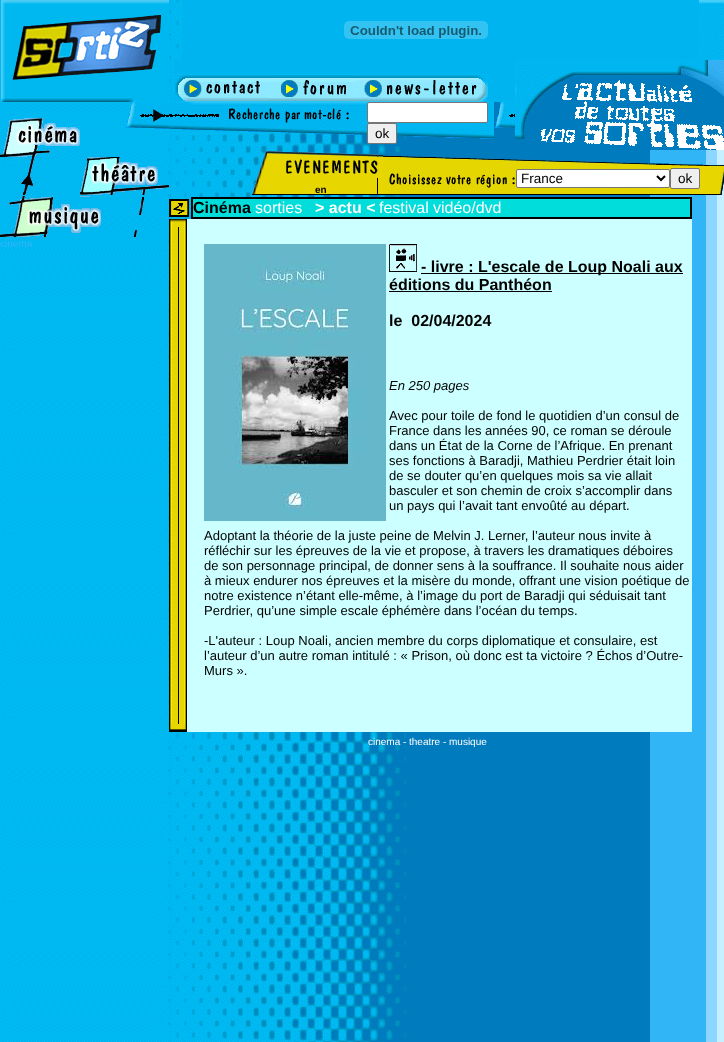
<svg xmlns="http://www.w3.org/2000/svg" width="724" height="1042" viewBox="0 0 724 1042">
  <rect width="100%" height="100%" fill="#ffffff"/>
  <image x="0" y="0" width="724" height="1042" href="img1.png"/>
  <image x="1" y="0" width="168" height="102" href="img2.png"/>
  <rect x="182" y="0" width="517" height="60" fill="#00b5ef"/>
  <image x="344" y="21" width="144" height="18" href="img3.png"/>
  <image x="699" y="0" width="25" height="60" href="img4.png"/>
  <image x="0" y="118" width="80" height="39" href="img5.png"/>
  <rect x="174" y="60" width="341" height="42" fill="#00b5ef"/>
  <image x="174" y="74" width="95" height="28" href="img6.png"/>
  <image x="269" y="74" width="87" height="28" href="img7.png"/>
  <image x="356" y="74" width="132" height="28" href="img8.png"/>
  <image x="515" y="60" width="209" height="90" href="img9.png"/>
  <image x="126" y="102" width="389" height="37" href="img10.png"/>
  <rect x="367.5" y="102.5" width="120" height="20" rx="1.5" fill="#ffffff" stroke="#767676"/>
  <rect x="367.5" y="123.5" width="29" height="20" rx="1.5" fill="#efefef" stroke="#767676"/>
  <text x="375" y="138" font-family="Liberation Sans" font-size="13.5" fill="#000000">ok</text>
  <image x="21" y="157" width="14" height="38" href="img11.png"/>
  <image x="80" y="157" width="89" height="38" href="img12.png"/>
  <image x="383" y="155" width="333" height="40" href="img13.png"/>
  <rect x="516.5" y="169.5" width="153" height="18" rx="1.5" fill="#ffffff" stroke="#767676"/>
  <path d="M657 176L661 180L665 176" fill="none" stroke="#000000" stroke-width="2"/>
  <text x="521" y="183" font-family="Liberation Sans" font-size="13.5" fill="#000000">France</text>
  <rect x="670.5" y="168.5" width="29" height="20" rx="1.5" fill="#efefef" stroke="#767676"/>
  <text x="678" y="183" font-family="Liberation Sans" font-size="13.5" fill="#000000">ok</text>
  <image x="716" y="165" width="8" height="30" href="img14.png"/>
  <image x="252" y="151" width="131" height="44" href="img15.png"/>
  <text x="315" y="193" font-family="Liberation Sans" font-size="10" font-weight="bold" fill="#000000">en</text>
  <image x="0" y="196" width="101" height="41" href="img16.png"/>
  <image x="133" y="197" width="11" height="40" href="img17.png"/>
  <text x="0" y="247" font-family="Liberation Sans" font-size="10" fill="#31b5f7">cinema</text>
  <image x="169" y="199" width="20" height="18" href="img18.png"/>
  <rect x="193" y="199" width="497" height="18" fill="#01ddda"/>
  <rect x="191.5" y="197.5" width="500" height="21" fill="none" stroke="#000000"/>
  <rect x="192.5" y="198.5" width="498" height="19" fill="none" stroke="#000000"/>
  <text x="193" y="213" font-family="Liberation Sans" font-size="16" font-weight="bold" fill="#000000">Cinéma</text>
  <text x="255" y="213" font-family="Liberation Sans" font-size="16" fill="#ffffff">sorties</text>
  <text x="315" y="213" font-family="Liberation Sans" font-size="16" font-weight="bold" fill="#ffffff">&gt; actu &lt;</text>
  <text x="379" y="213" font-family="Liberation Sans" font-size="16" fill="#ffffff">festival</text>
  <text x="433" y="213" font-family="Liberation Sans" font-size="16" fill="#ffffff">vidéo/dvd</text>
  <rect x="187" y="219" width="505" height="513" fill="#ccffff"/>
  <image x="169" y="272" width="18" height="460" href="img19.png"/>
  <image x="170" y="724" width="16" height="8" href="img20.png"/>
  <image x="169" y="219" width="18" height="53" href="img21.png"/>
  <image x="170" y="219" width="16" height="8" href="img22.png"/>
  <image x="204" y="244" width="182" height="277" href="img23.png"/>
  <image x="389" y="244" width="28" height="28" href="img24.png"/>
  <rect x="421" y="273" width="262" height="1" fill="#000000"/>
  <text x="421" y="272" font-family="Liberation Sans" font-size="16" font-weight="bold" fill="#000000">- livre : L'escale de Loup Noali aux</text>
  <text x="389" y="290" font-family="Liberation Sans" font-size="16" font-weight="bold" fill="#000000">éditions du Panthéon</text>
  <rect x="389" y="291" width="163" height="1" fill="#000000"/>
  <text x="389" y="326" font-family="Liberation Sans" font-size="16" font-weight="bold" fill="#000000" xml:space="preserve">le  02/04/2024</text>
  <text x="389" y="390" font-family="Liberation Sans" font-size="13" font-style="italic" fill="#000000">En 250 pages</text>
  <text x="389" y="420" font-family="Liberation Sans" font-size="13" fill="#000000">Avec pour toile de fond le quotidien d’un consul de</text>
  <text x="389" y="435" font-family="Liberation Sans" font-size="13" fill="#000000">France dans les années 90, ce roman se déroule</text>
  <text x="389" y="450" font-family="Liberation Sans" font-size="13" fill="#000000">dans un État de la Corne de l’Afrique. En prenant</text>
  <text x="389" y="465" font-family="Liberation Sans" font-size="13" fill="#000000">ses fonctions à Baradji, Mathieu Perdrier était loin</text>
  <text x="389" y="480" font-family="Liberation Sans" font-size="13" fill="#000000">de se douter qu’en quelques mois sa vie allait</text>
  <text x="389" y="495" font-family="Liberation Sans" font-size="13" fill="#000000">basculer et son chemin de croix s’accomplir dans</text>
  <text x="389" y="510" font-family="Liberation Sans" font-size="13" fill="#000000">un pays qui l’avait tant envoûté au départ.</text>
  <text x="204" y="540" font-family="Liberation Sans" font-size="13" fill="#000000">Adoptant la théorie de la juste peine de Melvin J. Lerner, l’auteur nous invite à</text>
  <text x="204" y="555" font-family="Liberation Sans" font-size="13" fill="#000000">réfléchir sur les épreuves de la vie et propose, à travers les dramatiques déboires</text>
  <text x="204" y="570" font-family="Liberation Sans" font-size="13" fill="#000000">de son personnage principal, de donner sens à la souffrance. Il souhaite nous aider</text>
  <text x="204" y="585" font-family="Liberation Sans" font-size="13" fill="#000000">à mieux endurer nos épreuves et la misère du monde, offrant une vision poétique de</text>
  <text x="204" y="600" font-family="Liberation Sans" font-size="13" fill="#000000">notre existence n’étant elle-même, à l’image du port de Baradji qui séduisait tant</text>
  <text x="204" y="615" font-family="Liberation Sans" font-size="13" fill="#000000">Perdrier, qu’une simple escale éphémère dans l’océan du temps.</text>
  <text x="204" y="645" font-family="Liberation Sans" font-size="13" fill="#000000">-L'auteur : Loup Noali, ancien membre du corps diplomatique et consulaire, est</text>
  <text x="204" y="660" font-family="Liberation Sans" font-size="13" fill="#000000">l’auteur d’un autre roman intitulé : « Prison, où donc est ta victoire ? Échos d’Outre-</text>
  <text x="204" y="675" font-family="Liberation Sans" font-size="13" fill="#000000">Murs ».</text>
  <text x="368" y="745" font-family="Liberation Sans" font-size="10" fill="#ffffff">cinema</text>
  <text x="403" y="745" font-family="Liberation Serif" font-size="10" fill="#ffffff">-</text>
  <text x="409" y="745" font-family="Liberation Sans" font-size="10" fill="#ffffff">theatre</text>
  <text x="443" y="745" font-family="Liberation Serif" font-size="10" fill="#ffffff">-</text>
  <text x="449" y="745" font-family="Liberation Sans" font-size="10" fill="#ffffff">musique</text>
</svg>
